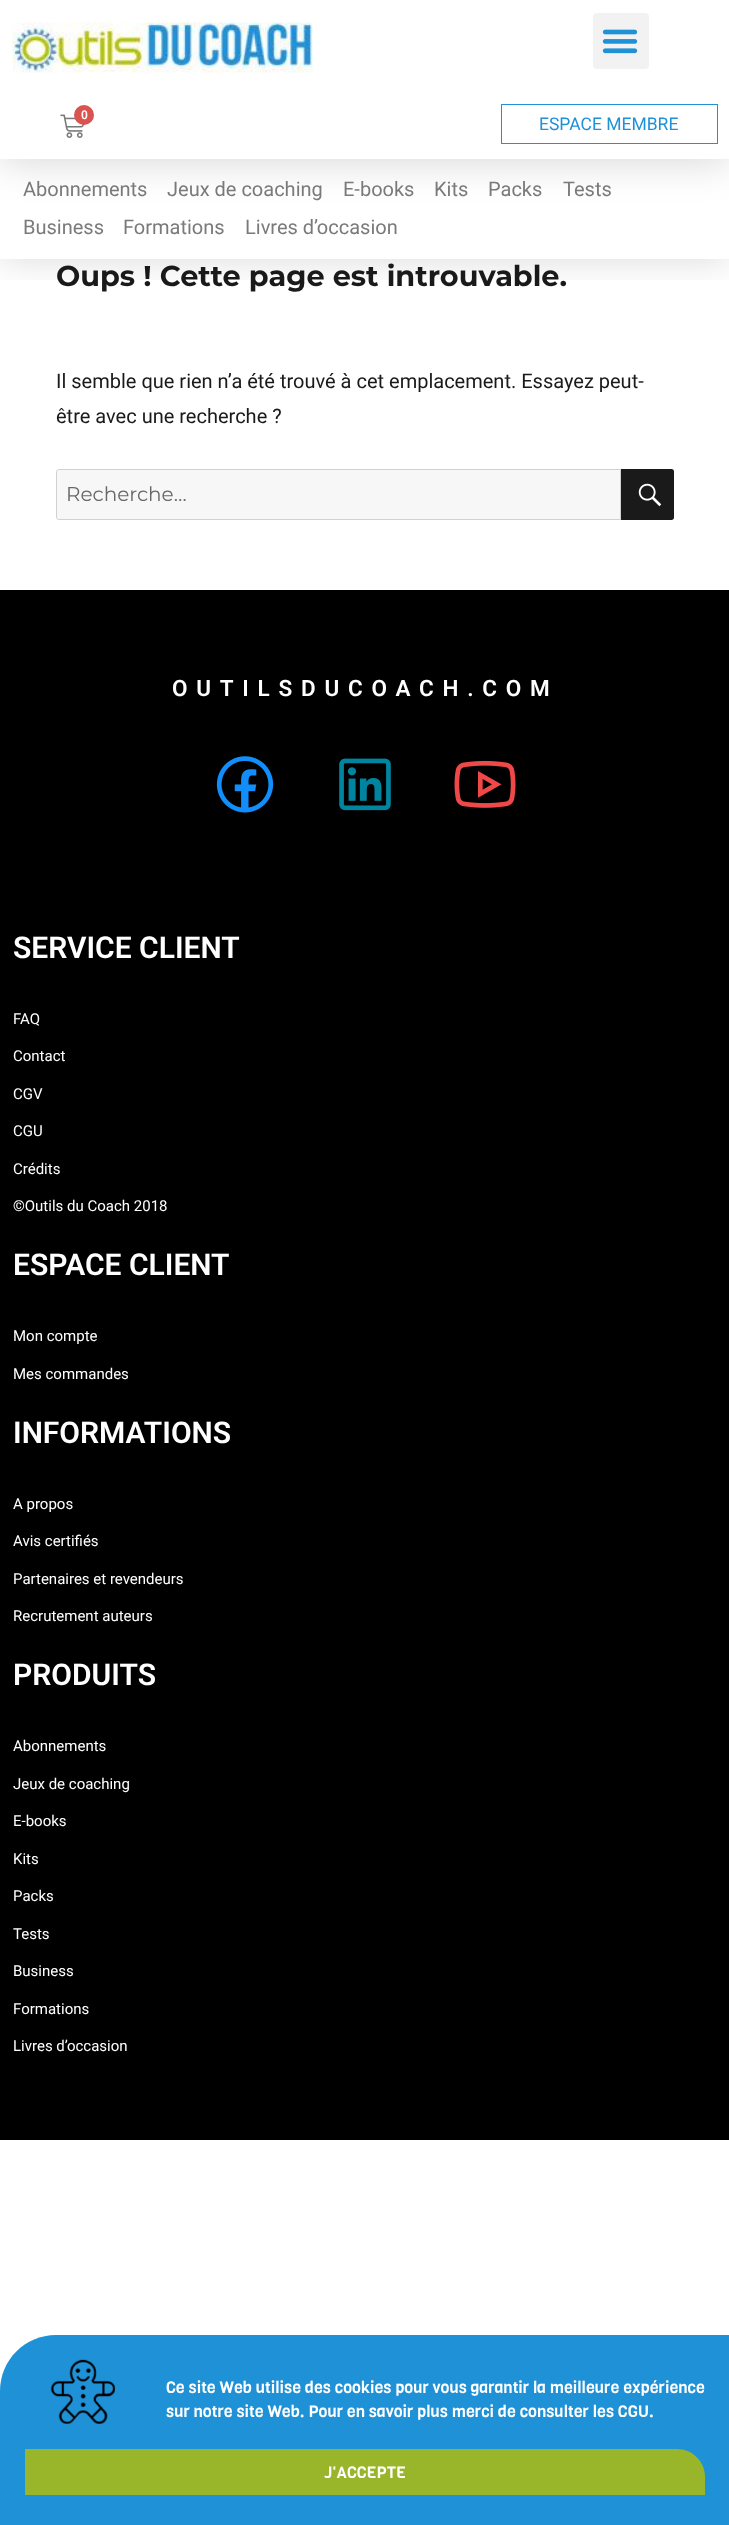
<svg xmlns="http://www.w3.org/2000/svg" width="729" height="2525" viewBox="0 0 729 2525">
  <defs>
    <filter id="blur1" x="-50%" y="-200%" width="200%" height="500%"><feGaussianBlur stdDeviation="19"/></filter>
    <clipPath id="clip1"><rect x="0" y="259" width="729" height="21"/></clipPath>
  </defs>
  <rect width="100%" height="100%" fill="#ffffff"/>
  <rect x="0" y="4" width="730" height="159" fill="#000000" fill-opacity="0.15" filter="url(#blur1)"/>
  <g clip-path="url(#clip1)">
    <rect x="0" y="159" width="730" height="100" fill="#000000" fill-opacity="0.15" filter="url(#blur1)"/>
  </g>
  <rect x="0" y="0" width="729" height="159" fill="#ffffff"/>
  <image x="12" y="22" width="301" height="51" href="img1.png"/>
  <rect x="593" y="13" width="56" height="56" rx="4" fill="#f2f2f2"/>
  <image x="602" y="29" width="36" height="25" href="img2.png"/>
  <image x="60" y="114" width="24" height="24" href="img3.png"/>
  <circle cx="84" cy="115" r="10" fill="#d9534f"/>
  <text x="81" y="119" font-family="Roboto" font-size="12" font-weight="600" fill="#ffffff">0</text>
  <rect x="501.5" y="104.5" width="216" height="39" fill="none" stroke="#1f91d7"/>
  <text x="539" y="130" font-family="Roboto" font-size="17.5" fill="#1f91d7">ESPACE MEMBRE</text>
  <text x="23" y="196" font-family="Roboto" font-size="20" fill="#7a7a7a">Abonnements</text>
  <text x="167" y="196" font-family="Roboto" font-size="20" fill="#7a7a7a">Jeux de coaching</text>
  <text x="343" y="196" font-family="Roboto" font-size="20" fill="#7a7a7a">E-books</text>
  <text x="434" y="196" font-family="Roboto" font-size="20" fill="#7a7a7a">Kits</text>
  <text x="488" y="196" font-family="Roboto" font-size="20" fill="#7a7a7a">Packs</text>
  <text x="563" y="196" font-family="Roboto" font-size="20" fill="#7a7a7a">Tests</text>
  <text x="23" y="234" font-family="Roboto" font-size="20" fill="#7a7a7a">Business</text>
  <text x="123" y="234" font-family="Roboto" font-size="20" fill="#7a7a7a">Formations</text>
  <text x="245" y="234" font-family="Roboto" font-size="20" fill="#7a7a7a">Livres d’occasion</text>
  <text x="56" y="286" font-family="Montserrat" font-size="28.75" font-weight="100" fill="#1a1a1a">Oups ! Cette page est introuvable.</text>
  <text x="56" y="388" font-family="Roboto" font-size="20" fill="#1a1a1a">Il semble que rien n’a été trouvé à cet emplacement. Essayez peut-</text>
  <text x="56" y="423" font-family="Roboto" font-size="20" fill="#1a1a1a">être avec une recherche ?</text>
  <path d="M58.5 469.5H620.5V519.5H58.5C57.5 519.5 56.5 518.5 56.5 517.5V471.5C56.5 470.5 57.5 469.5 58.5 469.5Z" fill="#f7f7f7" stroke="#d1d1d1"/>
  <text x="66" y="501" font-family="'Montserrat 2'" font-size="20" font-weight="100" fill="#686868">Recherche…</text>
  <path d="M621 469H671.5C673 469 674 470 674 471.5V517.5C674 519 673 520 671.5 520H621Z" fill="#1a1a1a"/>
  <image x="638" y="483" width="24" height="24" href="img4.png"/>
  <rect x="0" y="590" width="729" height="1550" fill="#000000"/>
  <text x="172" y="696" font-family="Roboto" font-size="22.5" font-weight="600" letter-spacing="8.75" fill="#ffffff">OUTILSDUCOACH.COM</text>
  <image x="216" y="756" width="58" height="57" href="img5.png"/>
  <image x="339" y="758" width="52" height="53" href="img6.png"/>
  <image x="454" y="760" width="62" height="48" href="img7.png"/>
  <text x="13" y="958" font-family="Roboto" font-size="30" font-weight="600" fill="#ffffff">SERVICE CLIENT</text>
  <text x="13" y="1024" font-family="Roboto" font-size="15" fill="#ffffff">FAQ</text>
  <text x="13" y="1061" font-family="Roboto" font-size="15" fill="#ffffff">Contact</text>
  <text x="13" y="1099" font-family="Roboto" font-size="15" fill="#ffffff">CGV</text>
  <text x="13" y="1136" font-family="Roboto" font-size="15" fill="#ffffff">CGU</text>
  <text x="13" y="1174" font-family="Roboto" font-size="15" fill="#ffffff">Crédits</text>
  <text x="13" y="1211" font-family="Roboto" font-size="15" fill="#ffffff">©Outils du Coach 2018</text>
  <text x="13" y="1275" font-family="Roboto" font-size="30" font-weight="600" fill="#ffffff">ESPACE CLIENT</text>
  <text x="13" y="1341" font-family="Roboto" font-size="15" fill="#ffffff">Mon compte</text>
  <text x="13" y="1379" font-family="Roboto" font-size="15" fill="#ffffff">Mes commandes</text>
  <text x="13" y="1443" font-family="Roboto" font-size="30" font-weight="600" fill="#ffffff">INFORMATIONS</text>
  <text x="13" y="1509" font-family="Roboto" font-size="15" fill="#ffffff">A propos</text>
  <text x="13" y="1546" font-family="Roboto" font-size="15" fill="#ffffff">Avis certifiés</text>
  <text x="13" y="1584" font-family="Roboto" font-size="15" fill="#ffffff">Partenaires et revendeurs</text>
  <text x="13" y="1621" font-family="Roboto" font-size="15" fill="#ffffff">Recrutement auteurs</text>
  <text x="13" y="1685" font-family="Roboto" font-size="30" font-weight="600" fill="#ffffff">PRODUITS</text>
  <text x="13" y="1751" font-family="Roboto" font-size="15" fill="#ffffff">Abonnements</text>
  <text x="13" y="1789" font-family="Roboto" font-size="15" fill="#ffffff">Jeux de coaching</text>
  <text x="13" y="1826" font-family="Roboto" font-size="15" fill="#ffffff">E-books</text>
  <text x="13" y="1864" font-family="Roboto" font-size="15" fill="#ffffff">Kits</text>
  <text x="13" y="1901" font-family="Roboto" font-size="15" fill="#ffffff">Packs</text>
  <text x="13" y="1939" font-family="Roboto" font-size="15" fill="#ffffff">Tests</text>
  <text x="13" y="1976" font-family="Roboto" font-size="15" fill="#ffffff">Business</text>
  <text x="13" y="2014" font-family="Roboto" font-size="15" fill="#ffffff">Formations</text>
  <text x="13" y="2051" font-family="Roboto" font-size="15" fill="#ffffff">Livres d’occasion</text>
  <path d="M56 2335H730V2525H0V2391C0 2360 25 2335 56 2335Z" fill="#1f91d7"/>
  <image x="50" y="2359" width="65" height="65" href="img8.png"/>
  <text x="166" y="2393" font-family="Viga" font-size="16.25" fill="#ffffff">Ce site Web utilise des cookies pour vous garantir la meilleure expérience</text>
  <text x="166" y="2417" font-family="Viga" font-size="16.25" fill="#ffffff">sur notre site Web. Pour en savoir plus merci de consulter les CGU.</text>
  <path d="M25 2449H677C692.5 2449 705 2461.5 705 2477V2495H25Z" fill="#99b529"/>
  <text x="324" y="2478" font-family="Viga" font-size="16.25" fill="#ffffff">J'ACCEPTE</text>
</svg>
